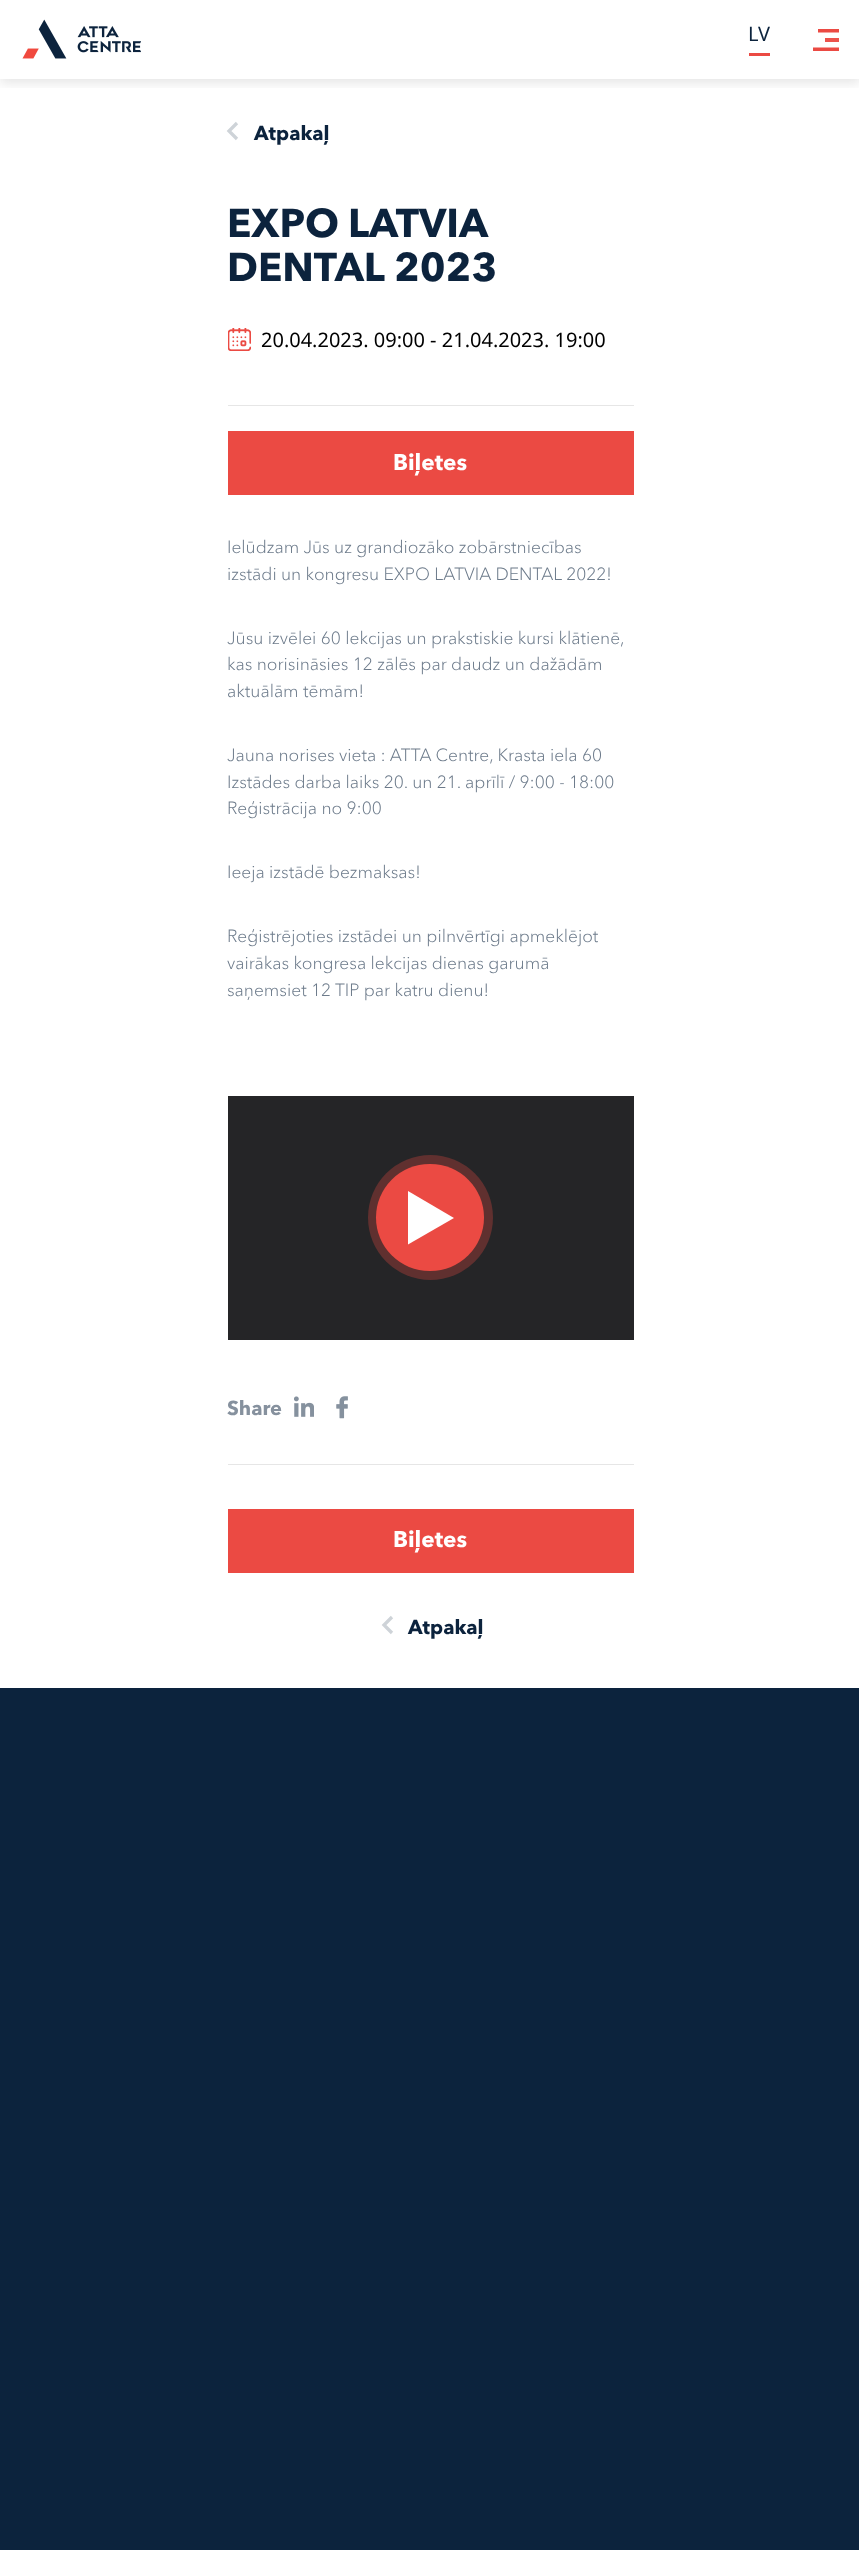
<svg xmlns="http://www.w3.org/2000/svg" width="859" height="2550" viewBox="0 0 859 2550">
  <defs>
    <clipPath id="clip1"><rect x="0" y="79" width="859" height="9"/></clipPath>
    <filter id="blur1" x="-50%" y="-200%" width="200%" height="500%"><feGaussianBlur stdDeviation="6"/></filter>
    <clipPath id="clip2"><rect x="813" y="29" width="26" height="22"/></clipPath>
    <clipPath id="clip3"><rect x="408" y="1191" width="46" height="54"/></clipPath>
  </defs>
  <rect width="100%" height="100%" fill="#ffffff"/>
  <g clip-path="url(#clip1)">
    <rect x="0" y="4" width="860" height="79" fill="#000000" fill-opacity="0.1" filter="url(#blur1)"/>
  </g>
  <image x="22" y="19" width="119" height="40" href="img1.png"/>
  <text x="748" y="41" font-family="Noto Sans" font-size="20" fill="#0c233d">LV</text>
  <rect x="749" y="53" width="21" height="3" fill="#eb4a43"/>
  <g clip-path="url(#clip2)">
    <path d="M839 30.5H818M839 49.5H812.5" fill="none" stroke="#eb4a43" stroke-width="3.8"/>
  </g>
  <rect x="825" y="38" width="14" height="4" fill="#ec534c"/>
  <path d="M237 139L229 131L237 123" fill="none" stroke="#ced3d8" stroke-width="3.3"/>
  <text x="254" y="140" font-family="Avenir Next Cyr" font-size="20" font-weight="bold" fill="#0c233d">Atpakaļ</text>
  <text x="227" y="237" word-spacing="-1" font-family="Avenir Next Cyr" font-size="40" font-weight="bold" fill="#0c233d">EXPO LATVIA</text>
  <text x="227" y="281" font-family="Avenir Next Cyr" font-size="40" font-weight="bold" fill="#0c233d">DENTAL 2023</text>
  <image x="228" y="328" width="23" height="23" href="img2.png"/>
  <text x="261" y="347" font-family="Noto Sans" font-size="20" fill="#000000">20.04.2023. 09:00 - 21.04.2023. 19:00</text>
  <rect x="228" y="405" width="406" height="1" fill="#e6e6e6"/>
  <rect x="228" y="431" width="406" height="64" fill="#eb4a43"/>
  <text x="393" y="470" font-family="Avenir Next Cyr" font-size="22.5" font-weight="bold" fill="#ffffff">Biļetes</text>
  <text x="227" y="553" font-family="Avenir Next Cyr" font-size="17.5" font-weight="300" fill="#6d7b8b">Ielūdzam Jūs uz grandiozāko zobārstniecības</text>
  <text x="227" y="580" font-family="Avenir Next Cyr" font-size="17.5" font-weight="300" fill="#6d7b8b">izstādi un kongresu EXPO LATVIA DENTAL 2022!</text>
  <text x="227" y="644" font-family="Avenir Next Cyr" font-size="17.5" font-weight="300" fill="#6d7b8b">Jūsu izvēlei 60 lekcijas un prakstiskie kursi klātienē,</text>
  <text x="227" y="670" font-family="Avenir Next Cyr" font-size="17.5" font-weight="300" fill="#6d7b8b">kas norisināsies 12 zālēs par daudz un dažādām</text>
  <text x="227" y="697" font-family="Avenir Next Cyr" font-size="17.5" font-weight="300" fill="#6d7b8b">aktuālām tēmām!</text>
  <text x="227" y="761" font-family="Avenir Next Cyr" font-size="17.5" font-weight="300" fill="#6d7b8b">Jauna norises vieta : ATTA Centre, Krasta iela 60</text>
  <text x="227" y="788" font-family="Avenir Next Cyr" font-size="17.5" font-weight="300" fill="#6d7b8b">Izstādes darba laiks 20. un 21. aprīlī / 9:00 - 18:00</text>
  <text x="227" y="814" font-family="Avenir Next Cyr" font-size="17.5" font-weight="300" fill="#6d7b8b">Reģistrācija no 9:00</text>
  <text x="227" y="878" font-family="Avenir Next Cyr" font-size="17.5" font-weight="300" fill="#6d7b8b">Ieeja izstādē bezmaksas!</text>
  <text x="227" y="942" font-family="Avenir Next Cyr" font-size="17.5" font-weight="300" fill="#6d7b8b">Reģistrējoties izstādei un pilnvērtīgi apmeklējot</text>
  <text x="227" y="969" font-family="Avenir Next Cyr" font-size="17.5" font-weight="300" fill="#6d7b8b">vairākas kongresa lekcijas dienas garumā</text>
  <text x="227" y="996" font-family="Avenir Next Cyr" font-size="17.5" font-weight="300" fill="#6d7b8b">saņemsiet 12 TIP par katru dienu!</text>
  <rect x="228" y="1096" width="406" height="244" fill="#252527"/>
  <circle cx="430.5" cy="1217.5" r="62.5" fill="#60302f"/>
  <rect x="376" y="1164" width="108" height="107" rx="53.5" fill="#eb4a43"/>
  <g clip-path="url(#clip3)">
    <path d="M454 1218L407 1245L408 1191Z" fill="#ffffff"/>
  </g>
  <text x="227" y="1415" font-family="Avenir Next Cyr" font-size="20" font-weight="bold" fill="#86919e">Share</text>
  <image x="294" y="1396" width="20" height="21" href="img3.png"/>
  <image x="336" y="1396" width="12" height="23" href="img4.png"/>
  <rect x="228" y="1464" width="406" height="1" fill="#e6e6e6"/>
  <rect x="228" y="1509" width="406" height="64" fill="#eb4a43"/>
  <text x="393" y="1547" font-family="Avenir Next Cyr" font-size="22.5" font-weight="bold" fill="#ffffff">Biļetes</text>
  <path d="M392 1633L384 1625L392 1617" fill="none" stroke="#ced3d8" stroke-width="3.3"/>
  <text x="408" y="1634" font-family="Avenir Next Cyr" font-size="20" font-weight="bold" fill="#0c233d">Atpakaļ</text>
  <rect x="0" y="1688" width="859" height="862" fill="#0c233d"/>
</svg>
